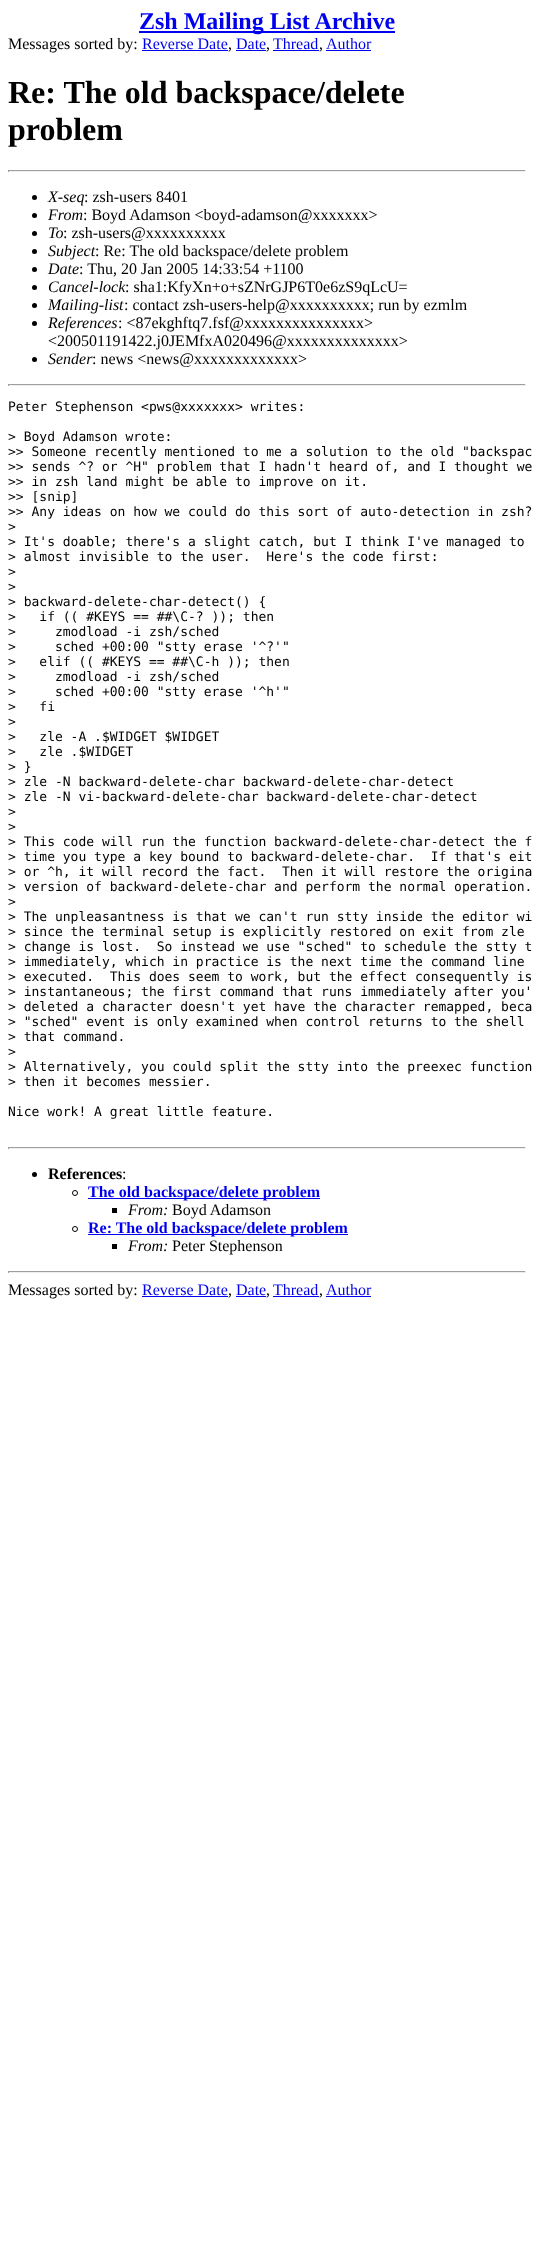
<svg xmlns="http://www.w3.org/2000/svg" width="534" height="2265" viewBox="0 0 534 2265">
  <rect width="100%" height="100%" fill="#ffffff"/>
  <rect x="139" y="31" width="256" height="2" fill="#0000ee"/>
  <text x="139" y="29" font-family="Liberation Serif" font-size="24" font-weight="bold" fill="#0000ee">Zsh Mailing List Archive</text>
  <text x="8" y="49" font-family="Liberation Serif" font-size="16" fill="#000000">Messages sorted by:</text>
  <text x="142" y="49" font-family="Liberation Serif" font-size="16" fill="#0000ee">Reverse Date</text>
  <rect x="142" y="50" width="86" height="1" fill="#0000ee"/>
  <text x="228" y="49" font-family="Liberation Serif" font-size="16" fill="#000000">,</text>
  <text x="236" y="49" font-family="Liberation Serif" font-size="16" fill="#0000ee">Date</text>
  <rect x="236" y="50" width="30" height="1" fill="#0000ee"/>
  <text x="266" y="49" font-family="Liberation Serif" font-size="16" fill="#000000">,</text>
  <text x="273" y="49" font-family="Liberation Serif" font-size="16" fill="#0000ee">Thread</text>
  <rect x="273" y="50" width="46" height="1" fill="#0000ee"/>
  <text x="319" y="49" font-family="Liberation Serif" font-size="16" fill="#000000">,</text>
  <text x="326" y="49" font-family="Liberation Serif" font-size="16" fill="#0000ee">Author</text>
  <rect x="326" y="50" width="45" height="1" fill="#0000ee"/>
  <text x="8" y="103" font-family="Liberation Serif" font-size="32" font-weight="bold" fill="#000000">Re: The old backspace/delete</text>
  <text x="8" y="140" font-family="Liberation Serif" font-size="32" font-weight="bold" fill="#000000">problem</text>
  <rect x="8" y="170" width="518" height="1" fill="#9f9f9f"/>
  <rect x="525" y="170" width="1" height="2" fill="#eeeeee"/>
  <rect x="8" y="171" width="518" height="1" fill="#eeeeee"/>
  <rect x="8" y="170" width="1" height="2" fill="#9f9f9f"/>
  <circle cx="34.5" cy="197.5" r="2.5" fill="#000000"/>
  <text x="48" y="202" font-family="Liberation Serif" font-size="16" font-style="italic" fill="#000000">X-seq</text>
  <text x="84" y="202" font-family="Liberation Serif" font-size="16" fill="#000000">: zsh-users 8401</text>
  <circle cx="34.5" cy="215.5" r="2.5" fill="#000000"/>
  <text x="48" y="220" font-family="Liberation Serif" font-size="16" font-style="italic" fill="#000000">From</text>
  <text x="83" y="220" font-family="Liberation Serif" font-size="16" fill="#000000">: Boyd Adamson &lt;boyd-adamson@xxxxxxx&gt;</text>
  <circle cx="34.5" cy="233.5" r="2.5" fill="#000000"/>
  <text x="48" y="238" font-family="Liberation Serif" font-size="16" font-style="italic" fill="#000000">To</text>
  <text x="63" y="238" font-family="Liberation Serif" font-size="16" fill="#000000">: zsh-users@xxxxxxxxxx</text>
  <circle cx="34.5" cy="251.5" r="2.5" fill="#000000"/>
  <text x="48" y="256" font-family="Liberation Serif" font-size="16" font-style="italic" fill="#000000">Subject</text>
  <text x="95" y="256" font-family="Liberation Serif" font-size="16" fill="#000000">: Re: The old backspace/delete problem</text>
  <circle cx="34.5" cy="269.5" r="2.5" fill="#000000"/>
  <text x="48" y="274" font-family="Liberation Serif" font-size="16" font-style="italic" fill="#000000">Date</text>
  <text x="79" y="274" font-family="Liberation Serif" font-size="16" fill="#000000">: Thu, 20 Jan 2005 14:33:54 +1100</text>
  <circle cx="34.5" cy="287.5" r="2.5" fill="#000000"/>
  <text x="48" y="292" font-family="Liberation Serif" font-size="16" font-style="italic" fill="#000000">Cancel-lock</text>
  <text x="125" y="292" font-family="Liberation Serif" font-size="16" fill="#000000">: sha1:KfyXn+o+sZNrGJP6T0e6zS9qLcU=</text>
  <circle cx="34.5" cy="305.5" r="2.5" fill="#000000"/>
  <text x="48" y="310" font-family="Liberation Serif" font-size="16" font-style="italic" fill="#000000">Mailing-list</text>
  <text x="124" y="310" font-family="Liberation Serif" font-size="16" fill="#000000">: contact zsh-users-help@xxxxxxxxxx; run by ezmlm</text>
  <circle cx="34.5" cy="323.5" r="2.5" fill="#000000"/>
  <text x="48" y="328" font-family="Liberation Serif" font-size="16" font-style="italic" fill="#000000">References</text>
  <text x="118" y="328" font-family="Liberation Serif" font-size="16" fill="#000000">: &lt;87ekghftq7.fsf@xxxxxxxxxxxxxxx&gt;</text>
  <text x="48" y="346" font-family="Liberation Serif" font-size="16" fill="#000000">&lt;200501191422.j0JEMfxA020496@xxxxxxxxxxxxxx&gt;</text>
  <circle cx="34.5" cy="359.5" r="2.5" fill="#000000"/>
  <text x="48" y="364" font-family="Liberation Serif" font-size="16" font-style="italic" fill="#000000">Sender</text>
  <text x="92" y="364" font-family="Liberation Serif" font-size="16" fill="#000000">: news &lt;news@xxxxxxxxxxxxx&gt;</text>
  <rect x="8" y="384" width="518" height="1" fill="#9f9f9f"/>
  <rect x="525" y="384" width="1" height="2" fill="#eeeeee"/>
  <rect x="8" y="385" width="518" height="1" fill="#eeeeee"/>
  <rect x="8" y="384" width="1" height="2" fill="#9f9f9f"/>
  <text x="8" y="411" font-family="DejaVu Sans Mono" font-size="13" fill="#000000">Peter Stephenson &lt;pws@xxxxxxx&gt; writes:</text>
  <text x="8" y="441" font-family="DejaVu Sans Mono" font-size="13" fill="#000000">&gt; Boyd Adamson wrote:</text>
  <text x="8" y="456" font-family="DejaVu Sans Mono" font-size="13" fill="#000000">&gt;&gt; Someone recently mentioned to me a solution to the old "backspac</text>
  <text x="8" y="471" font-family="DejaVu Sans Mono" font-size="13" fill="#000000">&gt;&gt; sends ^? or ^H" problem that I hadn't heard of, and I thought we</text>
  <text x="8" y="486" font-family="DejaVu Sans Mono" font-size="13" fill="#000000">&gt;&gt; in zsh land might be able to improve on it.</text>
  <text x="8" y="501" font-family="DejaVu Sans Mono" font-size="13" fill="#000000">&gt;&gt; [snip]</text>
  <text x="8" y="516" font-family="DejaVu Sans Mono" font-size="13" fill="#000000">&gt;&gt; Any ideas on how we could do this sort of auto-detection in zsh?</text>
  <text x="8" y="531" font-family="DejaVu Sans Mono" font-size="13" fill="#000000">&gt;</text>
  <text x="8" y="546" font-family="DejaVu Sans Mono" font-size="13" fill="#000000">&gt; It's doable; there's a slight catch, but I think I've managed to</text>
  <text x="8" y="561" font-family="DejaVu Sans Mono" font-size="13" fill="#000000" xml:space="preserve">&gt; almost invisible to the user.  Here's the code first:</text>
  <text x="8" y="576" font-family="DejaVu Sans Mono" font-size="13" fill="#000000">&gt;</text>
  <text x="8" y="591" font-family="DejaVu Sans Mono" font-size="13" fill="#000000">&gt;</text>
  <text x="8" y="606" font-family="DejaVu Sans Mono" font-size="13" fill="#000000">&gt; backward-delete-char-detect() {</text>
  <text x="8" y="621" font-family="DejaVu Sans Mono" font-size="13" fill="#000000" xml:space="preserve">&gt;   if (( #KEYS == ##\C-? )); then</text>
  <text x="8" y="636" font-family="DejaVu Sans Mono" font-size="13" fill="#000000" xml:space="preserve">&gt;     zmodload -i zsh/sched</text>
  <text x="8" y="651" font-family="DejaVu Sans Mono" font-size="13" fill="#000000" xml:space="preserve">&gt;     sched +00:00 "stty erase '^?'"</text>
  <text x="8" y="666" font-family="DejaVu Sans Mono" font-size="13" fill="#000000" xml:space="preserve">&gt;   elif (( #KEYS == ##\C-h )); then</text>
  <text x="8" y="681" font-family="DejaVu Sans Mono" font-size="13" fill="#000000" xml:space="preserve">&gt;     zmodload -i zsh/sched</text>
  <text x="8" y="696" font-family="DejaVu Sans Mono" font-size="13" fill="#000000" xml:space="preserve">&gt;     sched +00:00 "stty erase '^h'"</text>
  <text x="8" y="711" font-family="DejaVu Sans Mono" font-size="13" fill="#000000" xml:space="preserve">&gt;   fi</text>
  <text x="8" y="726" font-family="DejaVu Sans Mono" font-size="13" fill="#000000">&gt;</text>
  <text x="8" y="741" font-family="DejaVu Sans Mono" font-size="13" fill="#000000" xml:space="preserve">&gt;   zle -A .$WIDGET $WIDGET</text>
  <text x="8" y="756" font-family="DejaVu Sans Mono" font-size="13" fill="#000000" xml:space="preserve">&gt;   zle .$WIDGET</text>
  <text x="8" y="771" font-family="DejaVu Sans Mono" font-size="13" fill="#000000">&gt; }</text>
  <text x="8" y="786" font-family="DejaVu Sans Mono" font-size="13" fill="#000000">&gt; zle -N backward-delete-char backward-delete-char-detect</text>
  <text x="8" y="801" font-family="DejaVu Sans Mono" font-size="13" fill="#000000">&gt; zle -N vi-backward-delete-char backward-delete-char-detect</text>
  <text x="8" y="816" font-family="DejaVu Sans Mono" font-size="13" fill="#000000">&gt;</text>
  <text x="8" y="831" font-family="DejaVu Sans Mono" font-size="13" fill="#000000">&gt;</text>
  <text x="8" y="846" font-family="DejaVu Sans Mono" font-size="13" fill="#000000">&gt; This code will run the function backward-delete-char-detect the f</text>
  <text x="8" y="861" font-family="DejaVu Sans Mono" font-size="13" fill="#000000" xml:space="preserve">&gt; time you type a key bound to backward-delete-char.  If that's eit</text>
  <text x="8" y="876" font-family="DejaVu Sans Mono" font-size="13" fill="#000000" xml:space="preserve">&gt; or ^h, it will record the fact.  Then it will restore the origina</text>
  <text x="8" y="891" font-family="DejaVu Sans Mono" font-size="13" fill="#000000">&gt; version of backward-delete-char and perform the normal operation.</text>
  <text x="8" y="906" font-family="DejaVu Sans Mono" font-size="13" fill="#000000">&gt;</text>
  <text x="8" y="921" font-family="DejaVu Sans Mono" font-size="13" fill="#000000">&gt; The unpleasantness is that we can't run stty inside the editor wi</text>
  <text x="8" y="936" font-family="DejaVu Sans Mono" font-size="13" fill="#000000">&gt; since the terminal setup is explicitly restored on exit from zle</text>
  <text x="8" y="951" font-family="DejaVu Sans Mono" font-size="13" fill="#000000" xml:space="preserve">&gt; change is lost.  So instead we use "sched" to schedule the stty t</text>
  <text x="8" y="966" font-family="DejaVu Sans Mono" font-size="13" fill="#000000">&gt; immediately, which in practice is the next time the command line</text>
  <text x="8" y="981" font-family="DejaVu Sans Mono" font-size="13" fill="#000000" xml:space="preserve">&gt; executed.  This does seem to work, but the effect consequently is</text>
  <text x="8" y="996" font-family="DejaVu Sans Mono" font-size="13" fill="#000000">&gt; instantaneous; the first command that runs immediately after you'</text>
  <text x="8" y="1011" font-family="DejaVu Sans Mono" font-size="13" fill="#000000">&gt; deleted a character doesn't yet have the character remapped, beca</text>
  <text x="8" y="1026" font-family="DejaVu Sans Mono" font-size="13" fill="#000000">&gt; "sched" event is only examined when control returns to the shell</text>
  <text x="8" y="1041" font-family="DejaVu Sans Mono" font-size="13" fill="#000000">&gt; that command.</text>
  <text x="8" y="1056" font-family="DejaVu Sans Mono" font-size="13" fill="#000000">&gt;</text>
  <text x="8" y="1071" font-family="DejaVu Sans Mono" font-size="13" fill="#000000">&gt; Alternatively, you could split the stty into the preexec function</text>
  <text x="8" y="1086" font-family="DejaVu Sans Mono" font-size="13" fill="#000000">&gt; then it becomes messier.</text>
  <text x="8" y="1116" font-family="DejaVu Sans Mono" font-size="13" fill="#000000">Nice work! A great little feature.</text>
  <rect x="8" y="1147" width="518" height="1" fill="#9f9f9f"/>
  <rect x="525" y="1147" width="1" height="2" fill="#eeeeee"/>
  <rect x="8" y="1148" width="518" height="1" fill="#eeeeee"/>
  <rect x="8" y="1147" width="1" height="2" fill="#9f9f9f"/>
  <circle cx="34.5" cy="1174.5" r="2.5" fill="#000000"/>
  <text x="48" y="1179" font-family="Liberation Serif" font-size="16" font-weight="bold" fill="#000000">References</text>
  <text x="122" y="1179" font-family="Liberation Serif" font-size="16" fill="#000000">:</text>
  <circle cx="75" cy="1193" r="2.5" fill="none" stroke="#000000"/>
  <rect x="88" y="1198" width="232" height="1" fill="#0000ee"/>
  <text x="88" y="1197" font-family="Liberation Serif" font-size="16" font-weight="bold" fill="#0000ee">The old backspace/delete problem</text>
  <rect x="112" y="1208" width="5" height="5" fill="#000000"/>
  <text x="128" y="1215" font-family="Liberation Serif" font-size="16" font-style="italic" fill="#000000">From:</text>
  <text x="172" y="1215" font-family="Liberation Serif" font-size="16" fill="#000000">Boyd Adamson</text>
  <circle cx="75" cy="1229" r="2.5" fill="none" stroke="#000000"/>
  <rect x="88" y="1234" width="260" height="1" fill="#0000ee"/>
  <text x="88" y="1233" font-family="Liberation Serif" font-size="16" font-weight="bold" fill="#0000ee">Re: The old backspace/delete problem</text>
  <rect x="112" y="1244" width="5" height="5" fill="#000000"/>
  <text x="128" y="1251" font-family="Liberation Serif" font-size="16" font-style="italic" fill="#000000">From:</text>
  <text x="172" y="1251" font-family="Liberation Serif" font-size="16" fill="#000000">Peter Stephenson</text>
  <rect x="8" y="1271" width="518" height="1" fill="#9f9f9f"/>
  <rect x="525" y="1271" width="1" height="2" fill="#eeeeee"/>
  <rect x="8" y="1272" width="518" height="1" fill="#eeeeee"/>
  <rect x="8" y="1271" width="1" height="2" fill="#9f9f9f"/>
  <text x="8" y="1295" font-family="Liberation Serif" font-size="16" fill="#000000">Messages sorted by:</text>
  <text x="142" y="1295" font-family="Liberation Serif" font-size="16" fill="#0000ee">Reverse Date</text>
  <rect x="142" y="1296" width="86" height="1" fill="#0000ee"/>
  <text x="228" y="1295" font-family="Liberation Serif" font-size="16" fill="#000000">,</text>
  <text x="236" y="1295" font-family="Liberation Serif" font-size="16" fill="#0000ee">Date</text>
  <rect x="236" y="1296" width="30" height="1" fill="#0000ee"/>
  <text x="266" y="1295" font-family="Liberation Serif" font-size="16" fill="#000000">,</text>
  <text x="273" y="1295" font-family="Liberation Serif" font-size="16" fill="#0000ee">Thread</text>
  <rect x="273" y="1296" width="46" height="1" fill="#0000ee"/>
  <text x="319" y="1295" font-family="Liberation Serif" font-size="16" fill="#000000">,</text>
  <text x="326" y="1295" font-family="Liberation Serif" font-size="16" fill="#0000ee">Author</text>
  <rect x="326" y="1296" width="45" height="1" fill="#0000ee"/>
</svg>
